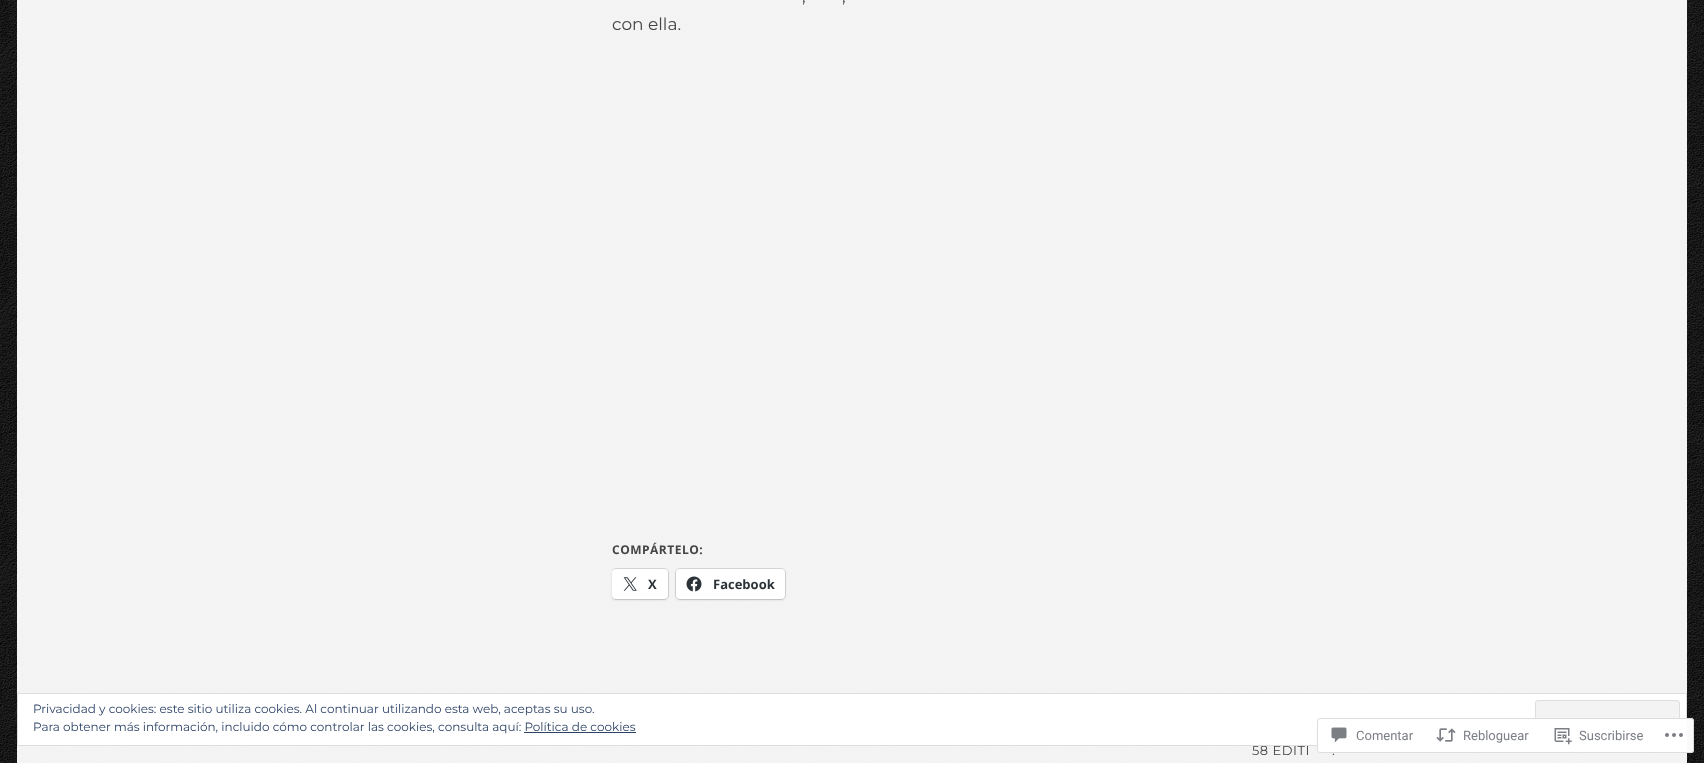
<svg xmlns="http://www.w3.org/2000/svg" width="1704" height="763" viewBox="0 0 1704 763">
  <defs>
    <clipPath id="clip1"><rect x="612" y="0" width="740" height="678"/></clipPath>
    <filter id="blur1" x="-50%" y="-200%" width="200%" height="500%"><feGaussianBlur stdDeviation="1"/></filter>
  </defs>
  <rect width="100%" height="100%" fill="#ffffff"/>
  <image x="0" y="0" width="1704" height="763" href="img1.png"/>
  <text x="1252" y="755" font-family="Montserrat" font-size="13" letter-spacing="0.5" fill="#444444">58 EDITI</text>
  <rect x="17.5" y="693.5" width="1669" height="52" fill="#ffffff" stroke="#dedede"/>
  <text x="33" y="713" font-family="Montserrat" font-size="12" fill="#2e4467">Privacidad y cookies: este sitio utiliza cookies. Al continuar utilizando esta web, aceptas su uso.</text>
  <rect x="1535.5" y="700.5" width="144" height="38" rx="2.5" fill="#f3f3f3" stroke="#dedede"/>
  <text x="33" y="731" font-family="Montserrat" font-size="12" fill="#2e4467">Para obtener más información, incluido cómo controlar las cookies, consulta aquí: Política de cookies</text>
  <rect x="524" y="732" width="112" height="1" fill="#2e4467"/>
  <text x="802" y="2" font-family="Montserrat" font-size="17" fill="#444444">,</text>
  <text x="842" y="2" font-family="Montserrat" font-size="17" fill="#444444">,</text>
  <text x="612" y="30" font-family="Montserrat" font-size="17" fill="#444444">con ella.</text>
  <text x="612" y="554" font-family="Open Sans" font-size="12" font-weight="bold" letter-spacing="0.5" fill="#444444">COMPÁRTELO:</text>
  <g clip-path="url(#clip1)">
    <rect x="611.5" y="568.5" width="57" height="31" rx="4.5" fill="none" stroke="#d6d6d6"/>
  </g>
  <rect x="612" y="570" width="56" height="30" rx="4" fill="#000000" fill-opacity="0.12" filter="url(#blur1)"/>
  <rect x="612" y="569" width="56" height="30" rx="4" fill="#ffffff"/>
  <image x="623" y="577" width="14" height="14" href="img2.png"/>
  <text x="648" y="589" font-family="Open Sans" font-size="13" font-weight="bold" fill="#2c3338">X</text>
  <rect x="675.5" y="568.5" width="110" height="31" rx="4.5" fill="none" stroke="#d6d6d6"/>
  <rect x="676" y="570" width="109" height="30" rx="4" fill="#000000" fill-opacity="0.12" filter="url(#blur1)"/>
  <rect x="676" y="569" width="109" height="30" rx="4" fill="#ffffff"/>
  <image x="686" y="576" width="16" height="16" href="img3.png"/>
  <text x="713" y="589" font-family="Open Sans" font-size="13" font-weight="bold" fill="#2c3338">Facebook</text>
  <text x="1332" y="755" font-family="Montserrat" font-size="13" letter-spacing="0.5" fill="#444444">.</text>
  <rect x="1317" y="718" width="377" height="35" rx="3" fill="#ffffff" fill-opacity="0.98"/>
  <rect x="1317.5" y="718.5" width="376" height="34" rx="2.5" fill="none" stroke="#dcdcde" stroke-opacity="0.98"/>
  <image x="1331" y="727" width="16" height="16" href="img4.png"/>
  <text x="1356" y="740" font-family="Roboto" font-size="13" fill="#7b7f85">Comentar</text>
  <image x="1436" y="728" width="20" height="14" href="img5.png"/>
  <text x="1463" y="740" font-family="Roboto" font-size="13" fill="#7b7f85">Rebloguear</text>
  <image x="1554" y="728" width="18" height="17" href="img6.png"/>
  <text x="1579" y="740" font-family="Roboto" font-size="13" fill="#7b7f85">Suscribirse</text>
  <image x="1665" y="733" width="18" height="4" href="img7.png"/>
</svg>
